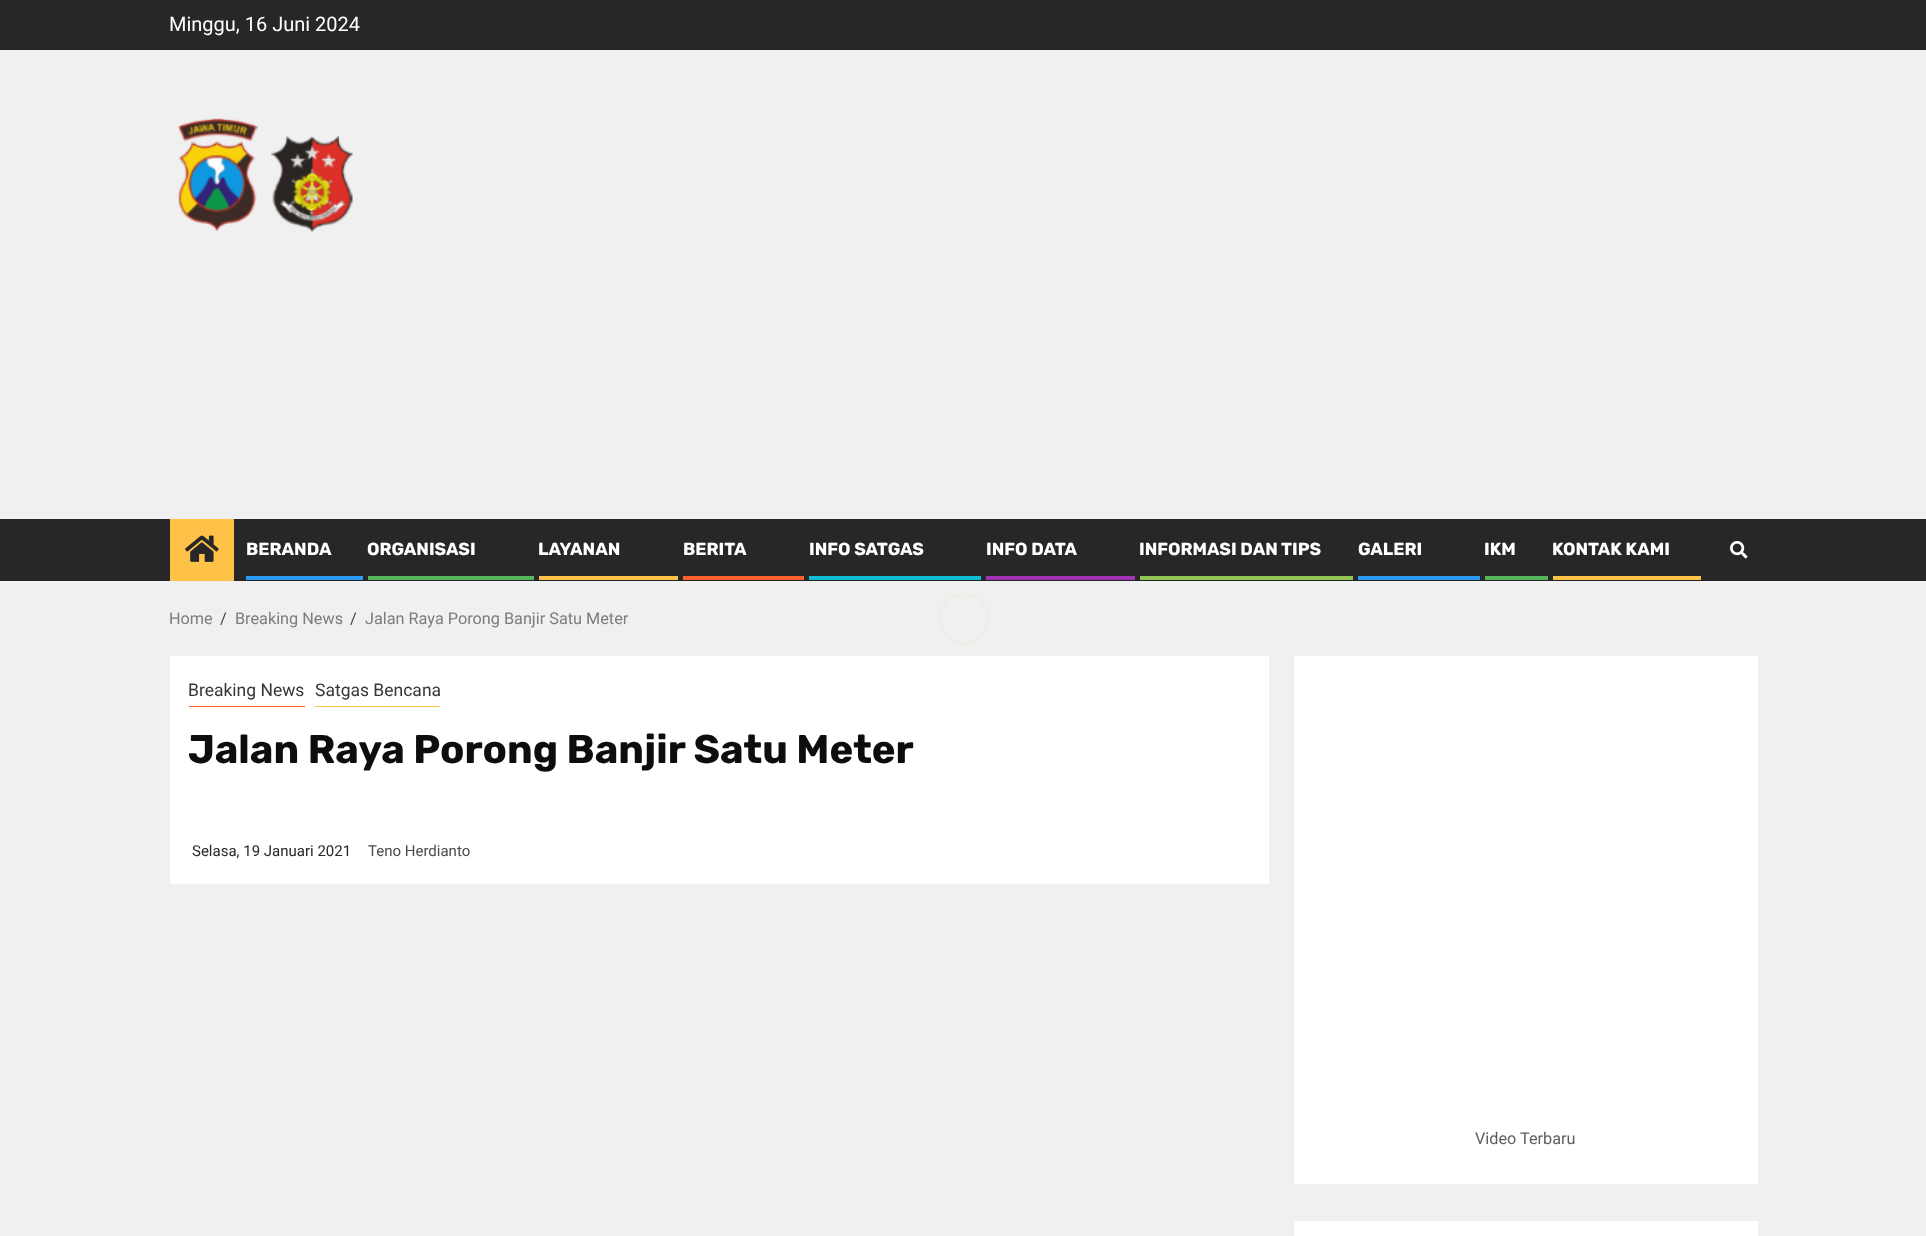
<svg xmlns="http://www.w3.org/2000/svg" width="1926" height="1236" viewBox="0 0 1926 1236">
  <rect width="100%" height="100%" fill="#f0f0f0"/>
  <rect x="0" y="0" width="1926" height="50" fill="#272727"/>
  <text x="169" y="31" font-family="Roboto" font-size="20" fill="#ffffff">Minggu, 16 Juni 2024</text>
  <image x="178" y="118" width="175" height="114" href="img1.png"/>
  <rect x="0" y="519" width="1926" height="62" fill="#272727"/>
  <rect x="170" y="519" width="64" height="62" fill="#ffc249"/>
  <image x="185" y="535" width="34" height="27" href="img2.png"/>
  <text x="246" y="555" font-family="Rubik" font-size="17.5" font-weight="bold" fill="#ffffff">BERANDA</text>
  <rect x="246" y="576" width="117" height="4" fill="#2c9bf4"/>
  <text x="367" y="555" font-family="Rubik" font-size="17.5" font-weight="bold" fill="#ffffff">ORGANISASI</text>
  <rect x="368" y="576" width="166" height="4" fill="#55b359"/>
  <text x="538" y="555" font-family="Rubik" font-size="17.5" font-weight="bold" fill="#ffffff">LAYANAN</text>
  <rect x="539" y="576" width="139" height="4" fill="#ffc249"/>
  <text x="683" y="555" font-family="Rubik" font-size="17.5" font-weight="bold" fill="#ffffff">BERITA</text>
  <rect x="683" y="576" width="121" height="4" fill="#ff5f2d"/>
  <text x="809" y="555" font-family="Rubik" font-size="17.5" font-weight="bold" fill="#ffffff">INFO SATGAS</text>
  <rect x="809" y="576" width="172" height="4" fill="#0dbfd6"/>
  <text x="986" y="555" font-family="Rubik" font-size="17.5" font-weight="bold" fill="#ffffff">INFO DATA</text>
  <rect x="986" y="576" width="149" height="4" fill="#a132b4"/>
  <text x="1139" y="555" font-family="Rubik" font-size="17.5" font-weight="bold" fill="#ffffff">INFORMASI DAN TIPS</text>
  <rect x="1140" y="576" width="213" height="4" fill="#91c653"/>
  <text x="1358" y="555" font-family="Rubik" font-size="17.5" font-weight="bold" fill="#ffffff">GALERI</text>
  <rect x="1358" y="576" width="122" height="4" fill="#2c9bf4"/>
  <text x="1484" y="555" font-family="Rubik" font-size="17.5" font-weight="bold" fill="#ffffff">IKM</text>
  <rect x="1485" y="576" width="63" height="4" fill="#55b359"/>
  <text x="1552" y="555" font-family="Rubik" font-size="17.5" font-weight="bold" fill="#ffffff">KONTAK KAMI</text>
  <rect x="1553" y="576" width="148" height="4" fill="#ffc249"/>
  <image x="1730" y="540" width="18" height="19" href="img3.png"/>
  <text x="169" y="624" font-family="Roboto" font-size="16.25" fill="#7c7c7c">Home</text>
  <text x="220" y="624" font-family="Roboto" font-size="16.25" fill="#43484f">/</text>
  <text x="235" y="624" font-family="Roboto" font-size="16.25" fill="#7c7c7c">Breaking News</text>
  <text x="350" y="624" font-family="Roboto" font-size="16.25" fill="#43484f">/</text>
  <text x="365" y="624" font-family="Roboto" font-size="16.25" fill="#7c7c7c">Jalan Raya Porong Banjir Satu Meter</text>
  <rect x="170" y="656" width="1099" height="228" fill="#ffffff"/>
  <rect x="189" y="706" width="116" height="1" fill="#ff5f2d"/>
  <text x="188" y="696" font-family="Roboto" font-size="17.5" fill="#363636">Breaking News</text>
  <rect x="315" y="706" width="125" height="1" fill="#ffc249"/>
  <text x="315" y="696" font-family="Roboto" font-size="17.5" fill="#363636">Satgas Bencana</text>
  <text x="188" y="763" font-family="Rubik" font-size="40" font-weight="bold" fill="#0d0d0d">Jalan Raya Porong Banjir Satu Meter</text>
  <text x="192" y="856" font-family="Roboto" font-size="15" fill="#272727">Selasa, 19 Januari 2021</text>
  <text x="368" y="856" font-family="Roboto" font-size="15" fill="#4a4a4a">Teno Herdianto</text>
  <rect x="1294" y="656" width="464" height="528" fill="#ffffff"/>
  <text x="1475" y="1144" font-family="Roboto" font-size="16.25" fill="#5e5e5e">Video Terbaru</text>
  <rect x="1294" y="1221" width="464" height="15" fill="#ffffff"/>
  <circle cx="964" cy="619" r="24.5" fill="none" stroke="#f0ece6" stroke-width="3"/>
</svg>
